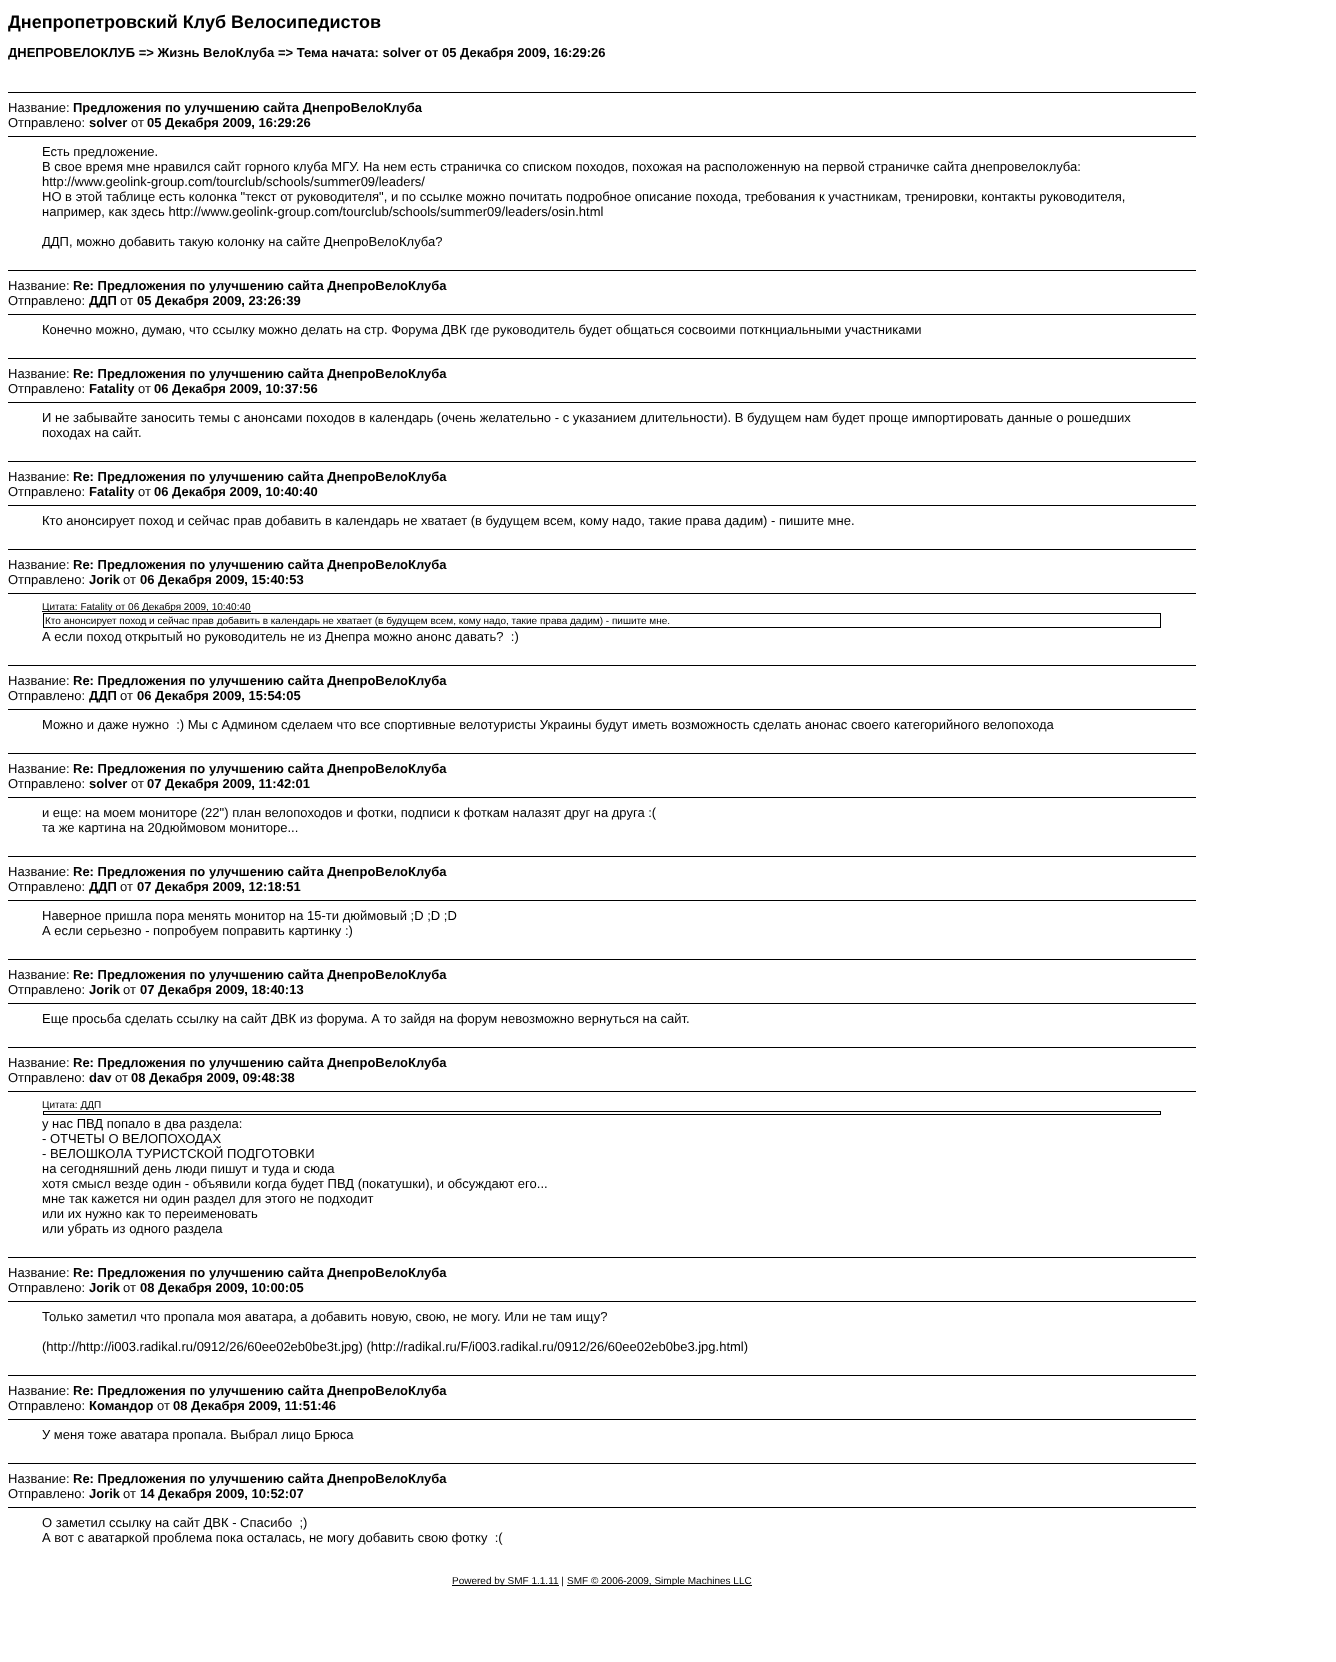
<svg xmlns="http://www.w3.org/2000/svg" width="1336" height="1662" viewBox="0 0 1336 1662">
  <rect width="100%" height="100%" fill="#ffffff"/>
  <text x="8" y="28" font-family="Liberation Sans" font-size="18" font-weight="bold" fill="#000000">Днепропетровский Клуб Велосипедистов</text>
  <text x="8" y="57" font-family="Liberation Sans" font-size="13" font-weight="bold" fill="#000000">ДНЕПРОВЕЛОКЛУБ =&gt; Жизнь ВелоКлуба =&gt; Тема начата: solver от 05 Декабря 2009, 16:29:26</text>
  <rect x="8" y="92" width="1188" height="1" fill="#000000"/>
  <text x="8" y="112" font-family="Liberation Sans" font-size="13" fill="#000000">Название:</text>
  <text x="73" y="112" font-family="Liberation Sans" font-size="13" font-weight="bold" fill="#000000">Предложения по улучшению сайта ДнепроВелоКлуба</text>
  <text x="8" y="127" font-family="Liberation Sans" font-size="13" fill="#000000">Отправлено:</text>
  <text x="89" y="127" font-family="Liberation Sans" font-size="13" font-weight="bold" fill="#000000">solver</text>
  <text x="131" y="127" font-family="Liberation Sans" font-size="13" fill="#000000">от</text>
  <text x="147" y="127" font-family="Liberation Sans" font-size="13" font-weight="bold" fill="#000000">05 Декабря 2009, 16:29:26</text>
  <rect x="8" y="136" width="1188" height="1" fill="#000000"/>
  <text x="42" y="156" font-family="Liberation Sans" font-size="13" fill="#000000">Есть предложение.</text>
  <text x="42" y="171" font-family="Liberation Sans" font-size="13" fill="#000000">В свое время мне нравился сайт горного клуба МГУ. На нем есть страничка со списком походов, похожая на расположенную на первой страничке сайта днепровелоклуба:</text>
  <text x="42" y="186" font-family="Liberation Sans" font-size="13" fill="#000000">http://www.geolink-group.com/tourclub/schools/summer09/leaders/</text>
  <text x="42" y="201" font-family="Liberation Sans" font-size="13" fill="#000000">НО в этой таблице есть колонка "текст от руководителя", и по ссылке можно почитать подробное описание похода, требования к участникам, тренировки, контакты руководителя,</text>
  <text x="42" y="216" font-family="Liberation Sans" font-size="13" fill="#000000">например, как здесь http://www.geolink-group.com/tourclub/schools/summer09/leaders/osin.html</text>
  <text x="42" y="246" font-family="Liberation Sans" font-size="13" fill="#000000">ДДП, можно добавить такую колонку на сайте ДнепроВелоКлуба?</text>
  <rect x="8" y="270" width="1188" height="1" fill="#000000"/>
  <text x="8" y="290" font-family="Liberation Sans" font-size="13" fill="#000000">Название:</text>
  <text x="73" y="290" font-family="Liberation Sans" font-size="13" font-weight="bold" fill="#000000">Re: Предложения по улучшению сайта ДнепроВелоКлуба</text>
  <text x="8" y="305" font-family="Liberation Sans" font-size="13" fill="#000000">Отправлено:</text>
  <text x="89" y="305" font-family="Liberation Sans" font-size="13" font-weight="bold" fill="#000000">ДДП</text>
  <text x="120" y="305" font-family="Liberation Sans" font-size="13" fill="#000000">от</text>
  <text x="137" y="305" font-family="Liberation Sans" font-size="13" font-weight="bold" fill="#000000">05 Декабря 2009, 23:26:39</text>
  <rect x="8" y="314" width="1188" height="1" fill="#000000"/>
  <text x="42" y="334" font-family="Liberation Sans" font-size="13" fill="#000000">Конечно можно, думаю, что ссылку можно делать на стр. Форума ДВК где руководитель будет общаться сосвоими поткнциальными участниками</text>
  <rect x="8" y="358" width="1188" height="1" fill="#000000"/>
  <text x="8" y="378" font-family="Liberation Sans" font-size="13" fill="#000000">Название:</text>
  <text x="73" y="378" font-family="Liberation Sans" font-size="13" font-weight="bold" fill="#000000">Re: Предложения по улучшению сайта ДнепроВелоКлуба</text>
  <text x="8" y="393" font-family="Liberation Sans" font-size="13" fill="#000000">Отправлено:</text>
  <text x="89" y="393" font-family="Liberation Sans" font-size="13" font-weight="bold" fill="#000000">Fatality</text>
  <text x="138" y="393" font-family="Liberation Sans" font-size="13" fill="#000000">от</text>
  <text x="154" y="393" font-family="Liberation Sans" font-size="13" font-weight="bold" fill="#000000">06 Декабря 2009, 10:37:56</text>
  <rect x="8" y="402" width="1188" height="1" fill="#000000"/>
  <text x="42" y="422" font-family="Liberation Sans" font-size="13" fill="#000000">И не забывайте заносить темы с анонсами походов в календарь (очень желательно - с указанием длительности). В будущем нам будет проще импортировать данные о рошедших</text>
  <text x="42" y="437" font-family="Liberation Sans" font-size="13" fill="#000000">походах на сайт.</text>
  <rect x="8" y="461" width="1188" height="1" fill="#000000"/>
  <text x="8" y="481" font-family="Liberation Sans" font-size="13" fill="#000000">Название:</text>
  <text x="73" y="481" font-family="Liberation Sans" font-size="13" font-weight="bold" fill="#000000">Re: Предложения по улучшению сайта ДнепроВелоКлуба</text>
  <text x="8" y="496" font-family="Liberation Sans" font-size="13" fill="#000000">Отправлено:</text>
  <text x="89" y="496" font-family="Liberation Sans" font-size="13" font-weight="bold" fill="#000000">Fatality</text>
  <text x="138" y="496" font-family="Liberation Sans" font-size="13" fill="#000000">от</text>
  <text x="154" y="496" font-family="Liberation Sans" font-size="13" font-weight="bold" fill="#000000">06 Декабря 2009, 10:40:40</text>
  <rect x="8" y="505" width="1188" height="1" fill="#000000"/>
  <text x="42" y="525" font-family="Liberation Sans" font-size="13" fill="#000000">Кто анонсирует поход и сейчас прав добавить в календарь не хватает (в будущем всем, кому надо, такие права дадим) - пишите мне.</text>
  <rect x="8" y="549" width="1188" height="1" fill="#000000"/>
  <text x="8" y="569" font-family="Liberation Sans" font-size="13" fill="#000000">Название:</text>
  <text x="73" y="569" font-family="Liberation Sans" font-size="13" font-weight="bold" fill="#000000">Re: Предложения по улучшению сайта ДнепроВелоКлуба</text>
  <text x="8" y="584" font-family="Liberation Sans" font-size="13" fill="#000000">Отправлено:</text>
  <text x="89" y="584" font-family="Liberation Sans" font-size="13" font-weight="bold" fill="#000000">Jorik</text>
  <text x="123" y="584" font-family="Liberation Sans" font-size="13" fill="#000000">от</text>
  <text x="140" y="584" font-family="Liberation Sans" font-size="13" font-weight="bold" fill="#000000">06 Декабря 2009, 15:40:53</text>
  <rect x="8" y="593" width="1188" height="1" fill="#000000"/>
  <rect x="42" y="611" width="209" height="1" fill="#000000"/>
  <text x="42" y="610" font-family="Liberation Sans" font-size="10" fill="#000000">Цитата: Fatality от 06 Декабря 2009, 10:40:40</text>
  <rect x="43.5" y="613.5" width="1117" height="14" fill="none" stroke="#000000"/>
  <text x="45" y="624" font-family="Liberation Sans" font-size="10" fill="#000000">Кто анонсирует поход и сейчас прав добавить в календарь не хватает (в будущем всем, кому надо, такие права дадим) - пишите мне.</text>
  <text x="42" y="641" font-family="Liberation Sans" font-size="13" fill="#000000" xml:space="preserve">А если поход открытый но руководитель не из Днепра можно анонс давать?  :)</text>
  <rect x="8" y="665" width="1188" height="1" fill="#000000"/>
  <text x="8" y="685" font-family="Liberation Sans" font-size="13" fill="#000000">Название:</text>
  <text x="73" y="685" font-family="Liberation Sans" font-size="13" font-weight="bold" fill="#000000">Re: Предложения по улучшению сайта ДнепроВелоКлуба</text>
  <text x="8" y="700" font-family="Liberation Sans" font-size="13" fill="#000000">Отправлено:</text>
  <text x="89" y="700" font-family="Liberation Sans" font-size="13" font-weight="bold" fill="#000000">ДДП</text>
  <text x="120" y="700" font-family="Liberation Sans" font-size="13" fill="#000000">от</text>
  <text x="137" y="700" font-family="Liberation Sans" font-size="13" font-weight="bold" fill="#000000">06 Декабря 2009, 15:54:05</text>
  <rect x="8" y="709" width="1188" height="1" fill="#000000"/>
  <text x="42" y="729" font-family="Liberation Sans" font-size="13" fill="#000000" xml:space="preserve">Можно и даже нужно  :) Мы с Админом сделаем что все спортивные велотуристы Украины будут иметь возможность сделать анонас своего категорийного велопохода</text>
  <rect x="8" y="753" width="1188" height="1" fill="#000000"/>
  <text x="8" y="773" font-family="Liberation Sans" font-size="13" fill="#000000">Название:</text>
  <text x="73" y="773" font-family="Liberation Sans" font-size="13" font-weight="bold" fill="#000000">Re: Предложения по улучшению сайта ДнепроВелоКлуба</text>
  <text x="8" y="788" font-family="Liberation Sans" font-size="13" fill="#000000">Отправлено:</text>
  <text x="89" y="788" font-family="Liberation Sans" font-size="13" font-weight="bold" fill="#000000">solver</text>
  <text x="131" y="788" font-family="Liberation Sans" font-size="13" fill="#000000">от</text>
  <text x="147" y="788" font-family="Liberation Sans" font-size="13" font-weight="bold" fill="#000000">07 Декабря 2009, 11:42:01</text>
  <rect x="8" y="797" width="1188" height="1" fill="#000000"/>
  <text x="42" y="817" font-family="Liberation Sans" font-size="13" fill="#000000">и еще: на моем мониторе (22") план велопоходов и фотки, подписи к фоткам налазят друг на друга :(</text>
  <text x="42" y="832" font-family="Liberation Sans" font-size="13" fill="#000000">та же картина на 20дюймовом мониторе...</text>
  <rect x="8" y="856" width="1188" height="1" fill="#000000"/>
  <text x="8" y="876" font-family="Liberation Sans" font-size="13" fill="#000000">Название:</text>
  <text x="73" y="876" font-family="Liberation Sans" font-size="13" font-weight="bold" fill="#000000">Re: Предложения по улучшению сайта ДнепроВелоКлуба</text>
  <text x="8" y="891" font-family="Liberation Sans" font-size="13" fill="#000000">Отправлено:</text>
  <text x="89" y="891" font-family="Liberation Sans" font-size="13" font-weight="bold" fill="#000000">ДДП</text>
  <text x="120" y="891" font-family="Liberation Sans" font-size="13" fill="#000000">от</text>
  <text x="137" y="891" font-family="Liberation Sans" font-size="13" font-weight="bold" fill="#000000">07 Декабря 2009, 12:18:51</text>
  <rect x="8" y="900" width="1188" height="1" fill="#000000"/>
  <text x="42" y="920" font-family="Liberation Sans" font-size="13" fill="#000000">Наверное пришла пора менять монитор на 15-ти дюймовый ;D ;D ;D</text>
  <text x="42" y="935" font-family="Liberation Sans" font-size="13" fill="#000000">А если серьезно - попробуем поправить картинку :)</text>
  <rect x="8" y="959" width="1188" height="1" fill="#000000"/>
  <text x="8" y="979" font-family="Liberation Sans" font-size="13" fill="#000000">Название:</text>
  <text x="73" y="979" font-family="Liberation Sans" font-size="13" font-weight="bold" fill="#000000">Re: Предложения по улучшению сайта ДнепроВелоКлуба</text>
  <text x="8" y="994" font-family="Liberation Sans" font-size="13" fill="#000000">Отправлено:</text>
  <text x="89" y="994" font-family="Liberation Sans" font-size="13" font-weight="bold" fill="#000000">Jorik</text>
  <text x="123" y="994" font-family="Liberation Sans" font-size="13" fill="#000000">от</text>
  <text x="140" y="994" font-family="Liberation Sans" font-size="13" font-weight="bold" fill="#000000">07 Декабря 2009, 18:40:13</text>
  <rect x="8" y="1003" width="1188" height="1" fill="#000000"/>
  <text x="42" y="1023" font-family="Liberation Sans" font-size="13" fill="#000000">Еще просьба сделать ссылку на сайт ДВК из форума. А то зайдя на форум невозможно вернуться на сайт.</text>
  <rect x="8" y="1047" width="1188" height="1" fill="#000000"/>
  <text x="8" y="1067" font-family="Liberation Sans" font-size="13" fill="#000000">Название:</text>
  <text x="73" y="1067" font-family="Liberation Sans" font-size="13" font-weight="bold" fill="#000000">Re: Предложения по улучшению сайта ДнепроВелоКлуба</text>
  <text x="8" y="1082" font-family="Liberation Sans" font-size="13" fill="#000000">Отправлено:</text>
  <text x="89" y="1082" font-family="Liberation Sans" font-size="13" font-weight="bold" fill="#000000">dav</text>
  <text x="115" y="1082" font-family="Liberation Sans" font-size="13" fill="#000000">от</text>
  <text x="131" y="1082" font-family="Liberation Sans" font-size="13" font-weight="bold" fill="#000000">08 Декабря 2009, 09:48:38</text>
  <rect x="8" y="1091" width="1188" height="1" fill="#000000"/>
  <text x="42" y="1108" font-family="Liberation Sans" font-size="10" fill="#000000">Цитата: ДДП</text>
  <rect x="43.5" y="1111.5" width="1117" height="3" fill="none" stroke="#000000"/>
  <text x="42" y="1128" font-family="Liberation Sans" font-size="13" fill="#000000">у нас ПВД попало в два раздела:</text>
  <text x="42" y="1143" font-family="Liberation Sans" font-size="13" fill="#000000">- ОТЧЕТЫ О ВЕЛОПОХОДАХ</text>
  <text x="42" y="1158" font-family="Liberation Sans" font-size="13" fill="#000000">- ВЕЛОШКОЛА ТУРИСТСКОЙ ПОДГОТОВКИ</text>
  <text x="42" y="1173" font-family="Liberation Sans" font-size="13" fill="#000000">на сегодняшний день люди пишут и туда и сюда</text>
  <text x="42" y="1188" font-family="Liberation Sans" font-size="13" fill="#000000">хотя смысл везде один - объявили когда будет ПВД (покатушки), и обсуждают его...</text>
  <text x="42" y="1203" font-family="Liberation Sans" font-size="13" fill="#000000">мне так кажется ни один раздел для этого не подходит</text>
  <text x="42" y="1218" font-family="Liberation Sans" font-size="13" fill="#000000">или их нужно как то переименовать</text>
  <text x="42" y="1233" font-family="Liberation Sans" font-size="13" fill="#000000">или убрать из одного раздела</text>
  <rect x="8" y="1257" width="1188" height="1" fill="#000000"/>
  <text x="8" y="1277" font-family="Liberation Sans" font-size="13" fill="#000000">Название:</text>
  <text x="73" y="1277" font-family="Liberation Sans" font-size="13" font-weight="bold" fill="#000000">Re: Предложения по улучшению сайта ДнепроВелоКлуба</text>
  <text x="8" y="1292" font-family="Liberation Sans" font-size="13" fill="#000000">Отправлено:</text>
  <text x="89" y="1292" font-family="Liberation Sans" font-size="13" font-weight="bold" fill="#000000">Jorik</text>
  <text x="123" y="1292" font-family="Liberation Sans" font-size="13" fill="#000000">от</text>
  <text x="140" y="1292" font-family="Liberation Sans" font-size="13" font-weight="bold" fill="#000000">08 Декабря 2009, 10:00:05</text>
  <rect x="8" y="1301" width="1188" height="1" fill="#000000"/>
  <text x="42" y="1321" font-family="Liberation Sans" font-size="13" fill="#000000">Только заметил что пропала моя аватара, а добавить новую, свою, не могу. Или не там ищу?</text>
  <text x="42" y="1351" font-family="Liberation Sans" font-size="13" fill="#000000">(http://http://i003.radikal.ru/0912/26/60ee02eb0be3t.jpg) (http://radikal.ru/F/i003.radikal.ru/0912/26/60ee02eb0be3.jpg.html)</text>
  <rect x="8" y="1375" width="1188" height="1" fill="#000000"/>
  <text x="8" y="1395" font-family="Liberation Sans" font-size="13" fill="#000000">Название:</text>
  <text x="73" y="1395" font-family="Liberation Sans" font-size="13" font-weight="bold" fill="#000000">Re: Предложения по улучшению сайта ДнепроВелоКлуба</text>
  <text x="8" y="1410" font-family="Liberation Sans" font-size="13" fill="#000000">Отправлено:</text>
  <text x="89" y="1410" font-family="Liberation Sans" font-size="13" font-weight="bold" fill="#000000">Командор</text>
  <text x="157" y="1410" font-family="Liberation Sans" font-size="13" fill="#000000">от</text>
  <text x="173" y="1410" font-family="Liberation Sans" font-size="13" font-weight="bold" fill="#000000">08 Декабря 2009, 11:51:46</text>
  <rect x="8" y="1419" width="1188" height="1" fill="#000000"/>
  <text x="42" y="1439" font-family="Liberation Sans" font-size="13" fill="#000000">У меня тоже аватара пропала. Выбрал лицо Брюса</text>
  <rect x="8" y="1463" width="1188" height="1" fill="#000000"/>
  <text x="8" y="1483" font-family="Liberation Sans" font-size="13" fill="#000000">Название:</text>
  <text x="73" y="1483" font-family="Liberation Sans" font-size="13" font-weight="bold" fill="#000000">Re: Предложения по улучшению сайта ДнепроВелоКлуба</text>
  <text x="8" y="1498" font-family="Liberation Sans" font-size="13" fill="#000000">Отправлено:</text>
  <text x="89" y="1498" font-family="Liberation Sans" font-size="13" font-weight="bold" fill="#000000">Jorik</text>
  <text x="123" y="1498" font-family="Liberation Sans" font-size="13" fill="#000000">от</text>
  <text x="140" y="1498" font-family="Liberation Sans" font-size="13" font-weight="bold" fill="#000000">14 Декабря 2009, 10:52:07</text>
  <rect x="8" y="1507" width="1188" height="1" fill="#000000"/>
  <text x="42" y="1527" font-family="Liberation Sans" font-size="13" fill="#000000" xml:space="preserve">О заметил ссылку на сайт ДВК - Спасибо  ;)</text>
  <text x="42" y="1542" font-family="Liberation Sans" font-size="13" fill="#000000" xml:space="preserve">А вот с аватаркой проблема пока осталась, не могу добавить свою фотку  :(</text>
  <rect x="452" y="1585" width="107" height="1" fill="#000000"/>
  <text x="452" y="1584" font-family="Liberation Sans" font-size="10" fill="#000000">Powered by SMF 1.1.11 |</text>
  <rect x="567" y="1585" width="185" height="1" fill="#000000"/>
  <text x="567" y="1584" font-family="Liberation Sans" font-size="10" fill="#000000">SMF © 2006-2009, Simple Machines LLC</text>
</svg>
